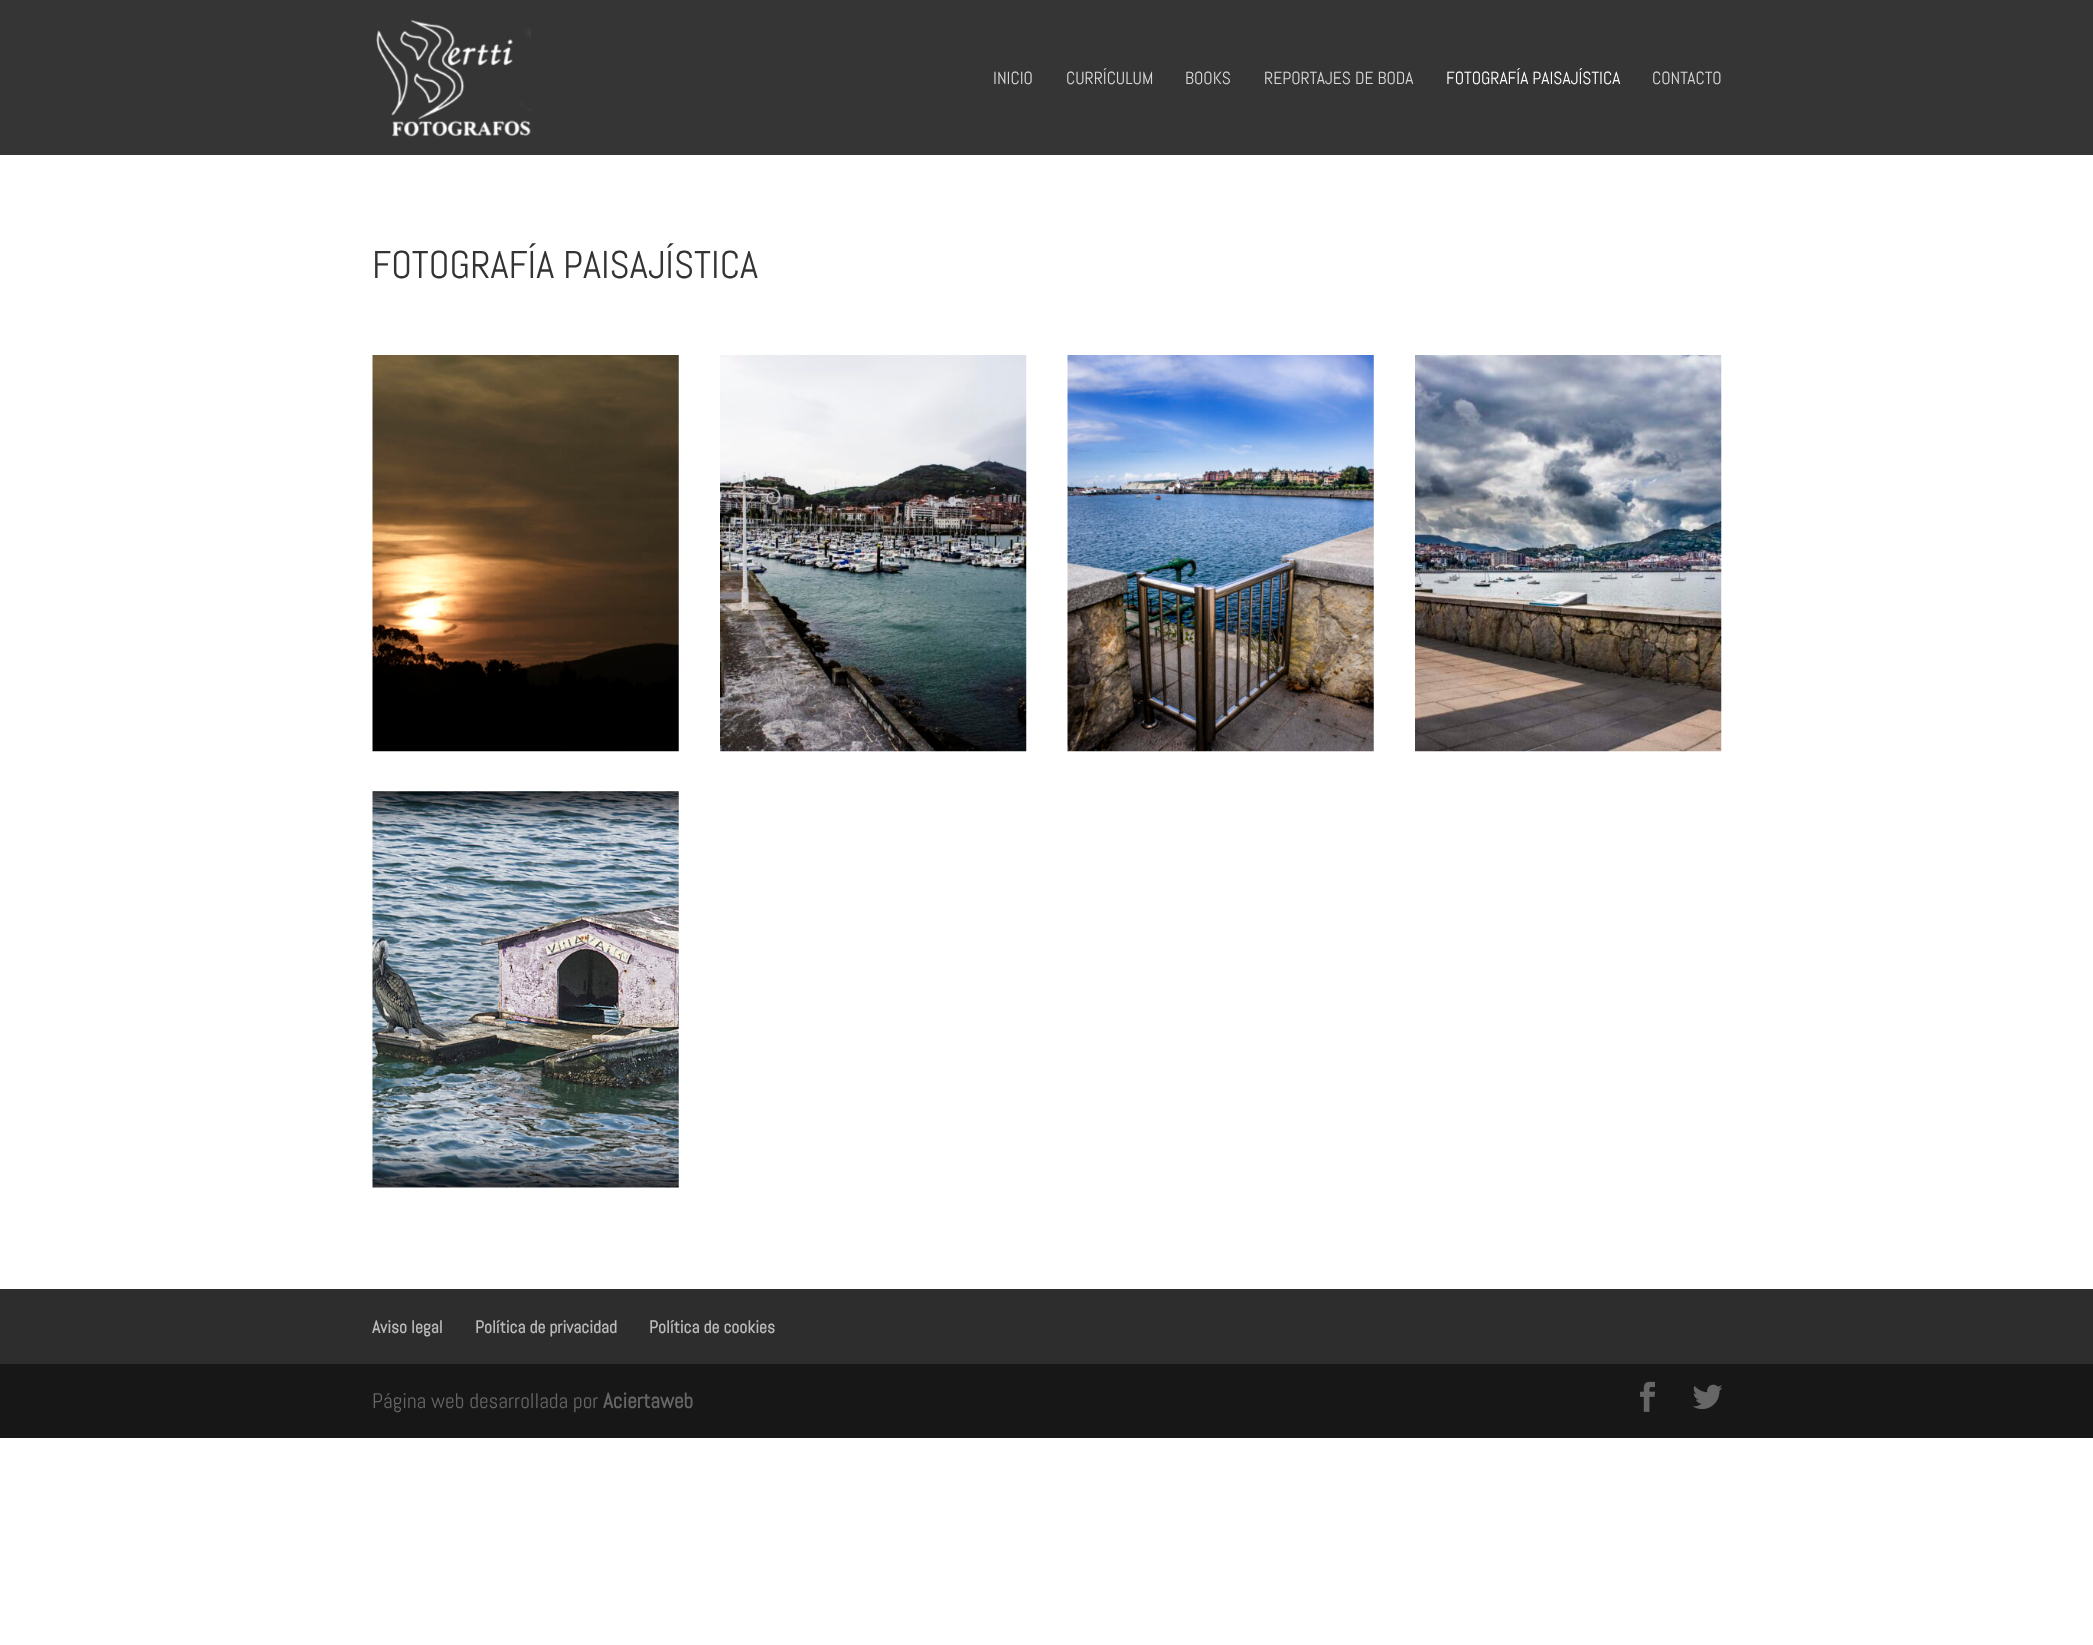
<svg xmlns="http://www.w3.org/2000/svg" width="2093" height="1645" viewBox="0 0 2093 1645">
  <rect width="100%" height="100%" fill="#ffffff"/>
  <rect x="0" y="0" width="2093" height="155" fill="#353535"/>
  <image x="376" y="19" width="155" height="118" href="img1.png"/>
  <text x="993" y="84" font-family="Abel" font-size="17.5" fill="#d9d9d9">INICIO</text>
  <text x="1066" y="84" font-family="Abel" font-size="17.5" fill="#d9d9d9">CURRÍCULUM</text>
  <text x="1185" y="84" font-family="Abel" font-size="17.5" fill="#d9d9d9">BOOKS</text>
  <text x="1264" y="84" font-family="Abel" font-size="17.5" fill="#d9d9d9">REPORTAJES DE BODA</text>
  <text x="1446" y="84" font-family="Abel" font-size="17.5" fill="#ffffff">FOTOGRAFÍA PAISAJÍSTICA</text>
  <text x="1652" y="84" font-family="Abel" font-size="17.5" fill="#d9d9d9">CONTACTO</text>
  <text x="372" y="278" font-family="Abel" font-size="38.75" fill="#333333">FOTOGRAFÍA PAISAJÍSTICA</text>
  <image x="372" y="355" width="307" height="397" href="img2.png"/>
  <image x="720" y="355" width="307" height="397" href="img3.png"/>
  <image x="1067" y="355" width="307" height="397" href="img4.png"/>
  <image x="1415" y="355" width="307" height="397" href="img5.png"/>
  <image x="372" y="791" width="307" height="397" href="img6.png"/>
  <rect x="0" y="1289" width="2093" height="75" fill="#2d2d2d"/>
  <text x="372" y="1333" font-family="Abel" font-size="17.5" font-weight="bold" fill="#bbbbbb">Aviso legal</text>
  <text x="475" y="1333" font-family="Abel" font-size="17.5" font-weight="bold" fill="#bbbbbb">Política de privacidad</text>
  <text x="649" y="1333" font-family="Abel" font-size="17.5" font-weight="bold" fill="#bbbbbb">Política de cookies</text>
  <rect x="0" y="1364" width="2093" height="74" fill="#171717"/>
  <text x="372" y="1408" font-family="Abel" font-size="21.25" fill="#666666">Página web desarrollada por</text>
  <text x="603" y="1408" font-family="Abel" font-size="21.25" font-weight="bold" fill="#666666">Aciertaweb</text>
  <image x="1640" y="1381" width="15" height="31" href="img7.png"/>
  <image x="1692" y="1384" width="31" height="25" href="img8.png"/>
</svg>
